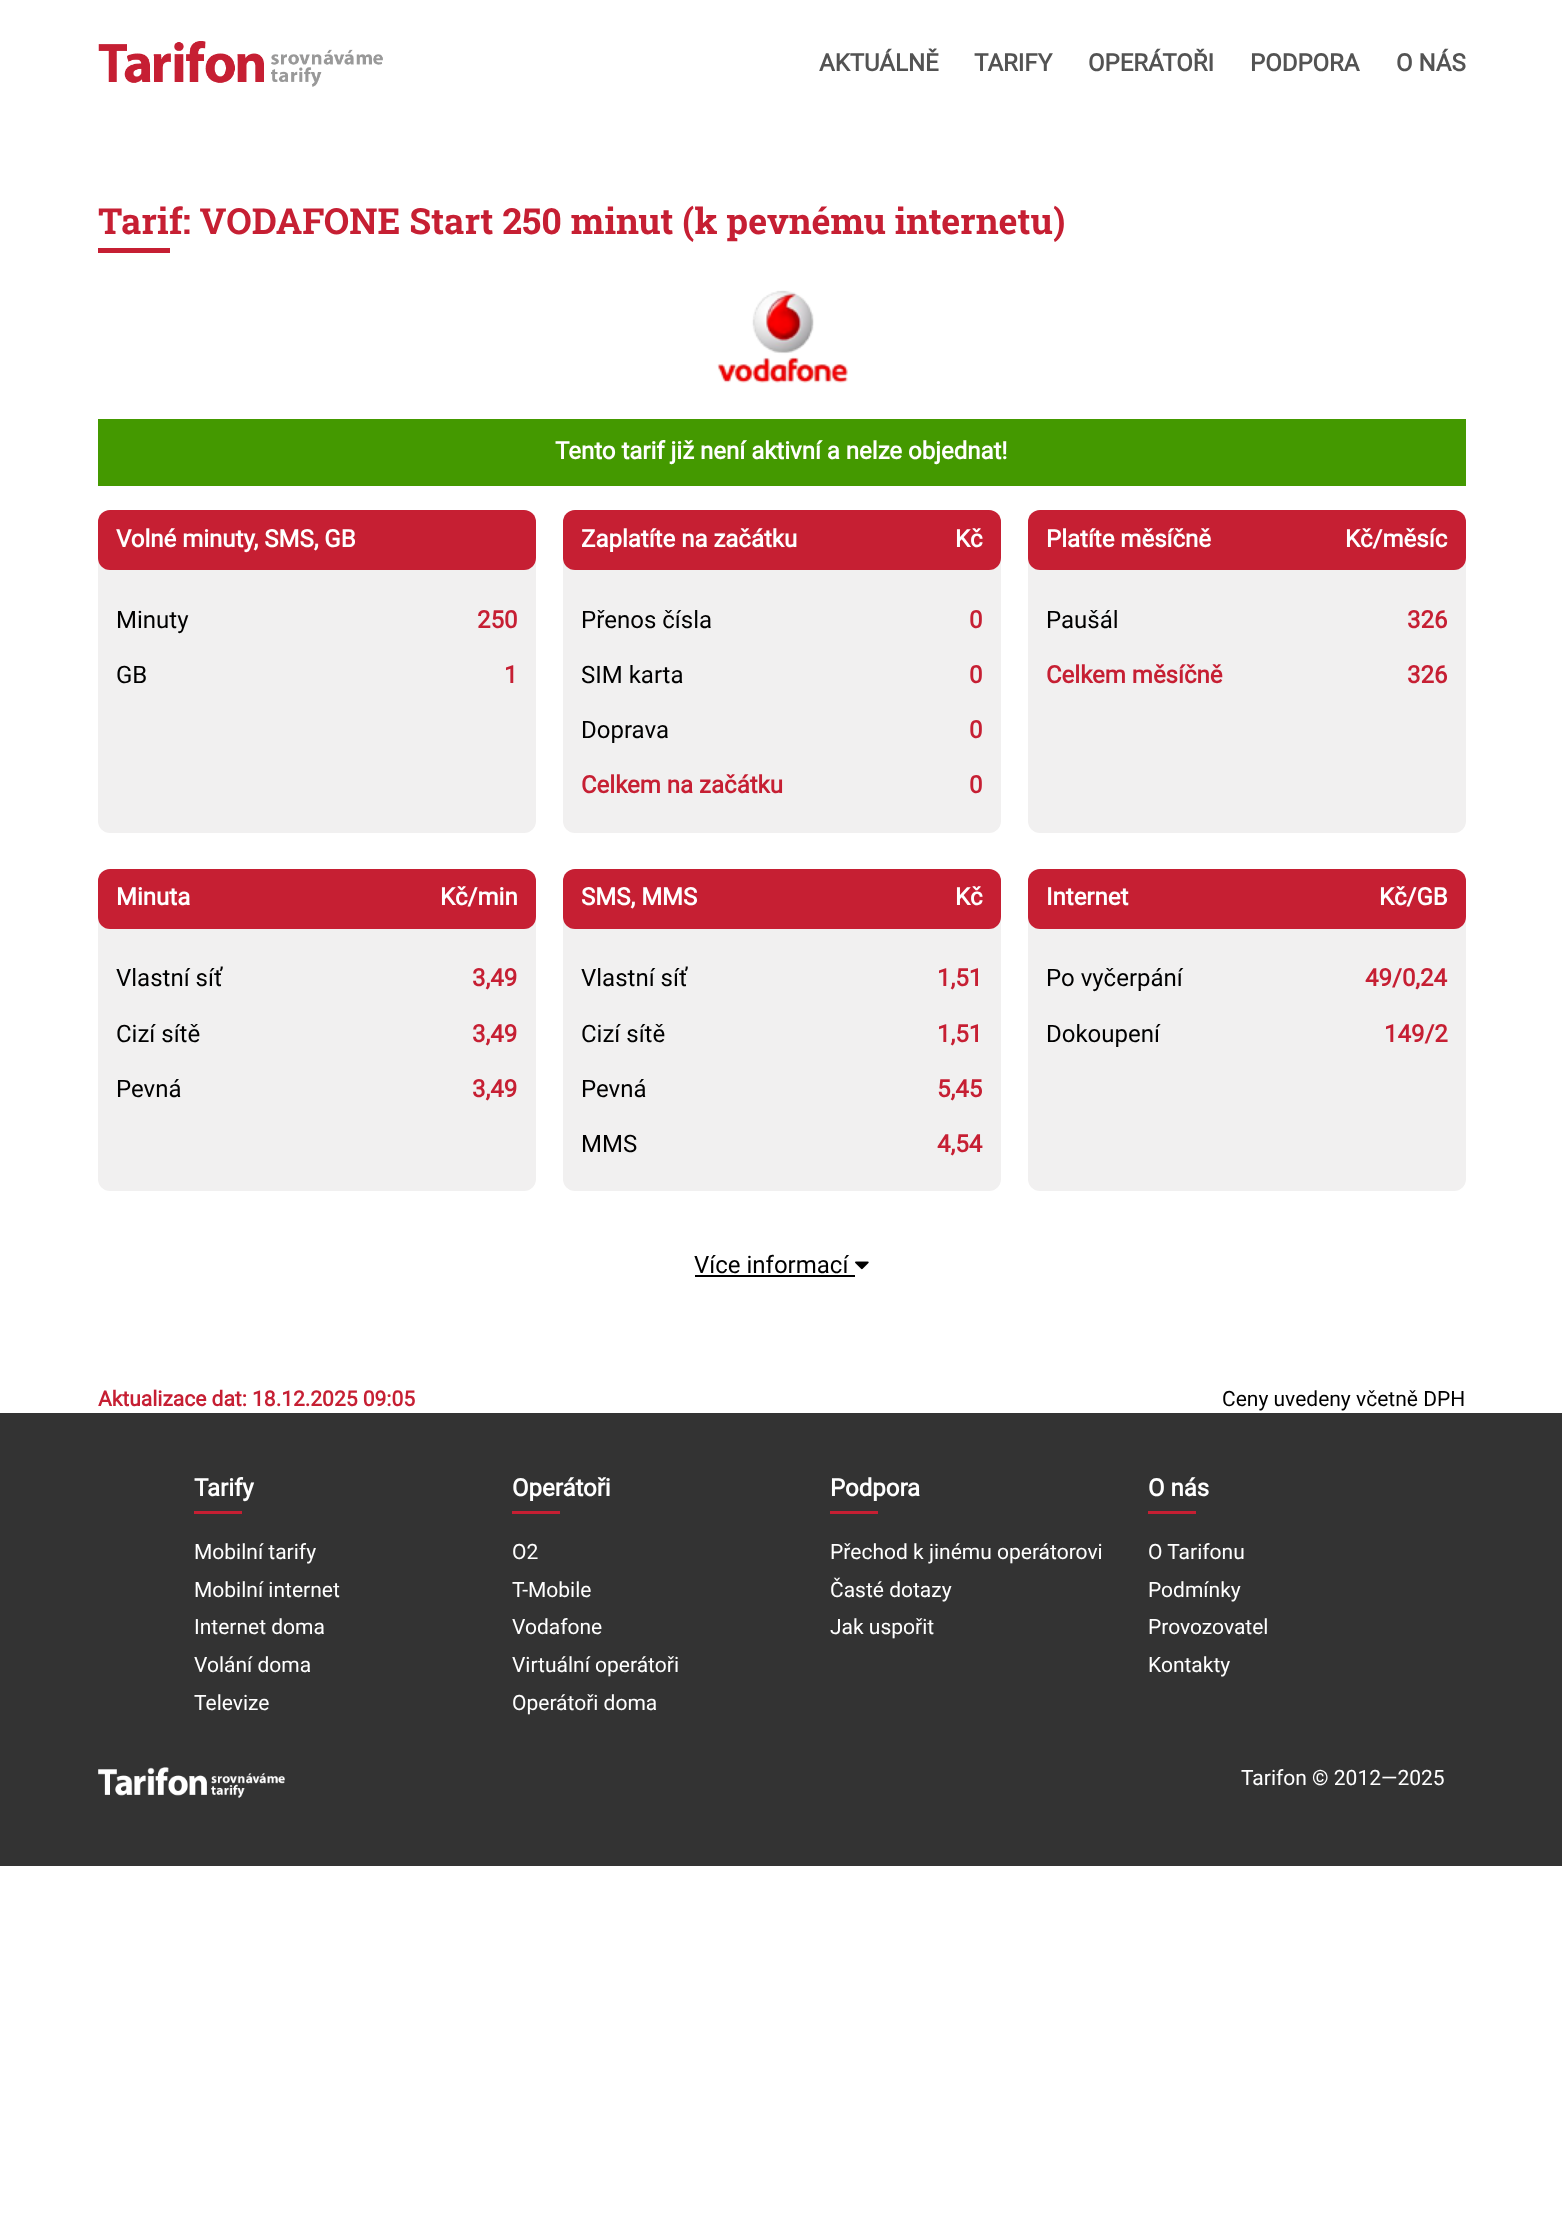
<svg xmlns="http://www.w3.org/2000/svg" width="1562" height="2213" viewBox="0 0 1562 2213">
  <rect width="100%" height="100%" fill="#ffffff"/>
  <image x="98" y="41" width="285" height="46" href="img1.png"/>
  <text x="819" y="71" font-family="Roboto" font-size="24" font-weight="bold" fill="#535353">AKTUÁLNĚ</text>
  <text x="974" y="71" font-family="Roboto" font-size="24" font-weight="bold" fill="#535353">TARIFY</text>
  <text x="1088" y="71" font-family="Roboto" font-size="24" font-weight="bold" fill="#535353">OPERÁTOŘI</text>
  <text x="1250" y="71" font-family="Roboto" font-size="24" font-weight="bold" fill="#535353">PODPORA</text>
  <text x="1396" y="71" font-family="Roboto" font-size="24" font-weight="bold" fill="#535353">O NÁS</text>
  <text x="98" y="234" font-family="Roboto Slab" font-size="36" font-weight="bold" fill="#c61f33">Tarif: VODAFONE Start 250 minut (k pevnému internetu)</text>
  <rect x="98" y="248" width="72" height="5" fill="#c61f33"/>
  <image x="717" y="290" width="132" height="93" href="img2.png"/>
  <rect x="98" y="419" width="1368" height="67" fill="#449900"/>
  <text x="555" y="459" font-family="Roboto" font-size="24" font-weight="bold" fill="#ffffff">Tento tarif již není aktivní a nelze objednat!</text>
  <rect x="98" y="510" width="438" height="323" rx="12" fill="#f1f0f0"/>
  <rect x="98" y="510" width="438" height="60" rx="12" fill="#c61f33"/>
  <text x="116" y="547" font-family="Roboto" font-size="24" font-weight="bold" fill="#ffffff">Volné minuty, SMS, GB</text>
  <text x="116" y="628" font-family="Roboto" font-size="24" fill="#000000">Minuty</text>
  <text x="477" y="628" font-family="Roboto" font-size="24" font-weight="bold" fill="#c61f33">250</text>
  <text x="116" y="683" font-family="Roboto" font-size="24" fill="#000000">GB</text>
  <text x="504" y="683" font-family="Roboto" font-size="24" font-weight="bold" fill="#c61f33">1</text>
  <rect x="563" y="510" width="438" height="323" rx="12" fill="#f1f0f0"/>
  <rect x="563" y="510" width="438" height="60" rx="12" fill="#c61f33"/>
  <text x="581" y="547" font-family="Roboto" font-size="24" font-weight="bold" fill="#ffffff">Zaplatíte na začátku</text>
  <text x="955" y="547" font-family="Roboto" font-size="24" font-weight="bold" fill="#ffffff">Kč</text>
  <text x="581" y="628" font-family="Roboto" font-size="24" fill="#000000">Přenos čísla</text>
  <text x="969" y="628" font-family="Roboto" font-size="24" font-weight="bold" fill="#c61f33">0</text>
  <text x="581" y="683" font-family="Roboto" font-size="24" fill="#000000">SIM karta</text>
  <text x="969" y="683" font-family="Roboto" font-size="24" font-weight="bold" fill="#c61f33">0</text>
  <text x="581" y="738" font-family="Roboto" font-size="24" fill="#000000">Doprava</text>
  <text x="969" y="738" font-family="Roboto" font-size="24" font-weight="bold" fill="#c61f33">0</text>
  <text x="581" y="793" font-family="Roboto" font-size="24" font-weight="bold" fill="#c61f33">Celkem na začátku</text>
  <text x="969" y="793" font-family="Roboto" font-size="24" font-weight="bold" fill="#c61f33">0</text>
  <rect x="1028" y="510" width="438" height="323" rx="12" fill="#f1f0f0"/>
  <rect x="1028" y="510" width="438" height="60" rx="12" fill="#c61f33"/>
  <text x="1046" y="547" font-family="Roboto" font-size="24" font-weight="bold" fill="#ffffff">Platíte měsíčně</text>
  <text x="1345" y="547" font-family="Roboto" font-size="24" font-weight="bold" fill="#ffffff">Kč/měsíc</text>
  <text x="1046" y="628" font-family="Roboto" font-size="24" fill="#000000">Paušál</text>
  <text x="1407" y="628" font-family="Roboto" font-size="24" font-weight="bold" fill="#c61f33">326</text>
  <text x="1046" y="683" font-family="Roboto" font-size="24" font-weight="bold" fill="#c61f33">Celkem měsíčně</text>
  <text x="1407" y="683" font-family="Roboto" font-size="24" font-weight="bold" fill="#c61f33">326</text>
  <rect x="98" y="869" width="438" height="322" rx="12" fill="#f1f0f0"/>
  <rect x="98" y="869" width="438" height="60" rx="12" fill="#c61f33"/>
  <text x="116" y="905" font-family="Roboto" font-size="24" font-weight="bold" fill="#ffffff">Minuta</text>
  <text x="440" y="905" font-family="Roboto" font-size="24" font-weight="bold" fill="#ffffff">Kč/min</text>
  <text x="116" y="986" font-family="Roboto" font-size="24" fill="#000000">Vlastní síť</text>
  <text x="472" y="986" font-family="Roboto" font-size="24" font-weight="bold" fill="#c61f33">3,49</text>
  <text x="116" y="1042" font-family="Roboto" font-size="24" fill="#000000">Cizí sítě</text>
  <text x="472" y="1042" font-family="Roboto" font-size="24" font-weight="bold" fill="#c61f33">3,49</text>
  <text x="116" y="1097" font-family="Roboto" font-size="24" fill="#000000">Pevná</text>
  <text x="472" y="1097" font-family="Roboto" font-size="24" font-weight="bold" fill="#c61f33">3,49</text>
  <rect x="563" y="869" width="438" height="322" rx="12" fill="#f1f0f0"/>
  <rect x="563" y="869" width="438" height="60" rx="12" fill="#c61f33"/>
  <text x="581" y="905" font-family="Roboto" font-size="24" font-weight="bold" fill="#ffffff">SMS, MMS</text>
  <text x="955" y="905" font-family="Roboto" font-size="24" font-weight="bold" fill="#ffffff">Kč</text>
  <text x="581" y="986" font-family="Roboto" font-size="24" fill="#000000">Vlastní síť</text>
  <text x="937" y="986" font-family="Roboto" font-size="24" font-weight="bold" fill="#c61f33">1,51</text>
  <text x="581" y="1042" font-family="Roboto" font-size="24" fill="#000000">Cizí sítě</text>
  <text x="937" y="1042" font-family="Roboto" font-size="24" font-weight="bold" fill="#c61f33">1,51</text>
  <text x="581" y="1097" font-family="Roboto" font-size="24" fill="#000000">Pevná</text>
  <text x="937" y="1097" font-family="Roboto" font-size="24" font-weight="bold" fill="#c61f33">5,45</text>
  <text x="581" y="1152" font-family="Roboto" font-size="24" fill="#000000">MMS</text>
  <text x="937" y="1152" font-family="Roboto" font-size="24" font-weight="bold" fill="#c61f33">4,54</text>
  <rect x="1028" y="869" width="438" height="322" rx="12" fill="#f1f0f0"/>
  <rect x="1028" y="869" width="438" height="60" rx="12" fill="#c61f33"/>
  <text x="1046" y="905" font-family="Roboto" font-size="24" font-weight="bold" fill="#ffffff">Internet</text>
  <text x="1379" y="905" font-family="Roboto" font-size="24" font-weight="bold" fill="#ffffff">Kč/GB</text>
  <text x="1046" y="986" font-family="Roboto" font-size="24" fill="#000000">Po vyčerpání</text>
  <text x="1365" y="986" font-family="Roboto" font-size="24" font-weight="bold" fill="#c61f33">49/0,24</text>
  <text x="1046" y="1042" font-family="Roboto" font-size="24" fill="#000000">Dokoupení</text>
  <text x="1384" y="1042" font-family="Roboto" font-size="24" font-weight="bold" fill="#c61f33">149/2</text>
  <text x="694" y="1273" font-family="Roboto" font-size="24" fill="#000000">Více informací</text>
  <rect x="695" y="1275" width="160" height="2" fill="#000000"/>
  <image x="855" y="1261" width="14" height="9" href="img3.png"/>
  <rect x="0" y="1413" width="1562" height="453" fill="#333333"/>
  <text x="98" y="1406" font-family="Roboto" font-size="21" font-weight="bold" fill="#c61f33">Aktualizace dat: 18.12.2025 09:05</text>
  <text x="1222" y="1406" font-family="Roboto" font-size="21" fill="#000000">Ceny uvedeny včetně DPH</text>
  <text x="194" y="1496" font-family="Roboto" font-size="24" font-weight="bold" fill="#ffffff">Tarify</text>
  <rect x="194" y="1511" width="48" height="3" fill="#c61f33"/>
  <text x="194" y="1559" font-family="Roboto" font-size="21" fill="#ffffff">Mobilní tarify</text>
  <text x="194" y="1597" font-family="Roboto" font-size="21" fill="#ffffff">Mobilní internet</text>
  <text x="194" y="1634" font-family="Roboto" font-size="21" fill="#ffffff">Internet doma</text>
  <text x="194" y="1672" font-family="Roboto" font-size="21" fill="#ffffff">Volání doma</text>
  <text x="194" y="1710" font-family="Roboto" font-size="21" fill="#ffffff">Televize</text>
  <text x="512" y="1496" font-family="Roboto" font-size="24" font-weight="bold" fill="#ffffff">Operátoři</text>
  <rect x="512" y="1511" width="48" height="3" fill="#c61f33"/>
  <text x="512" y="1559" font-family="Roboto" font-size="21" fill="#ffffff">O2</text>
  <text x="512" y="1597" font-family="Roboto" font-size="21" fill="#ffffff">T-Mobile</text>
  <text x="512" y="1634" font-family="Roboto" font-size="21" fill="#ffffff">Vodafone</text>
  <text x="512" y="1672" font-family="Roboto" font-size="21" fill="#ffffff">Virtuální operátoři</text>
  <text x="512" y="1710" font-family="Roboto" font-size="21" fill="#ffffff">Operátoři doma</text>
  <text x="830" y="1496" font-family="Roboto" font-size="24" font-weight="bold" fill="#ffffff">Podpora</text>
  <rect x="830" y="1511" width="48" height="3" fill="#c61f33"/>
  <text x="830" y="1559" font-family="Roboto" font-size="21" fill="#ffffff">Přechod k jinému operátorovi</text>
  <text x="830" y="1597" font-family="Roboto" font-size="21" fill="#ffffff">Časté dotazy</text>
  <text x="830" y="1634" font-family="Roboto" font-size="21" fill="#ffffff">Jak uspořit</text>
  <text x="1148" y="1496" font-family="Roboto" font-size="24" font-weight="bold" fill="#ffffff">O nás</text>
  <rect x="1148" y="1511" width="48" height="3" fill="#c61f33"/>
  <text x="1148" y="1559" font-family="Roboto" font-size="21" fill="#ffffff">O Tarifonu</text>
  <text x="1148" y="1597" font-family="Roboto" font-size="21" fill="#ffffff">Podmínky</text>
  <text x="1148" y="1634" font-family="Roboto" font-size="21" fill="#ffffff">Provozovatel</text>
  <text x="1148" y="1672" font-family="Roboto" font-size="21" fill="#ffffff">Kontakty</text>
  <image x="98" y="1767" width="187" height="31" href="img4.png"/>
  <text x="1241" y="1785" font-family="Roboto" font-size="21" fill="#ffffff">Tarifon © 2012—2025</text>
</svg>
